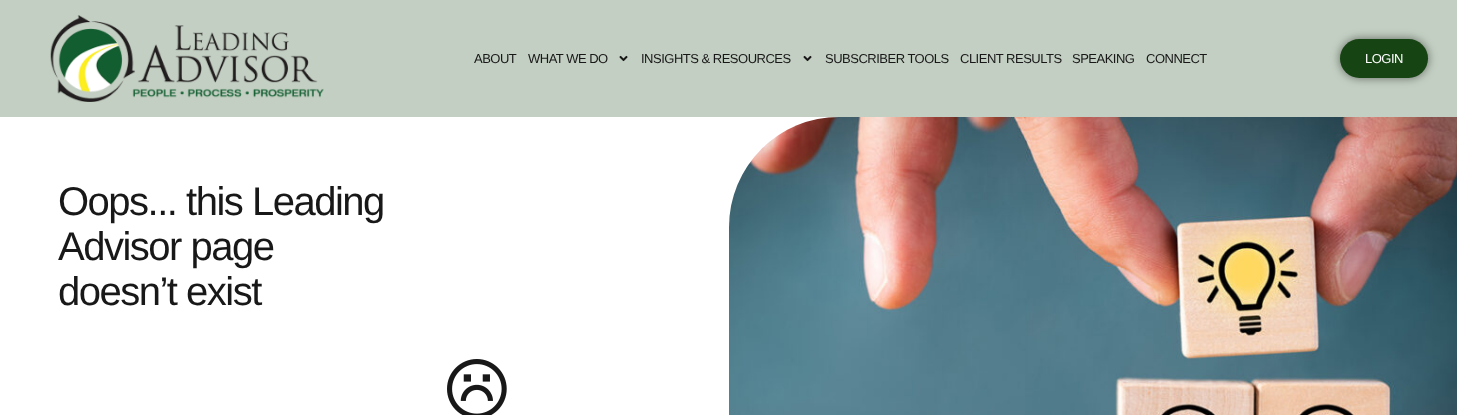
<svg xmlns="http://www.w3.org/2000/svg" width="1457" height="415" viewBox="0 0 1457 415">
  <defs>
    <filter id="blur1" x="-50%" y="-200%" width="200%" height="500%"><feGaussianBlur stdDeviation="5"/></filter>
  </defs>
  <rect width="100%" height="100%" fill="#ffffff"/>
  <rect x="0" y="0" width="1457" height="117" fill="#c3cfc2"/>
  <image x="50" y="15" width="274" height="87" href="img1.png"/>
  <text x="474" y="63" font-family="Liberation Sans" font-size="13" letter-spacing="-0.5" fill="#181818">ABOUT</text>
  <text x="528" y="63" font-family="Liberation Sans" font-size="13" letter-spacing="-0.5" fill="#181818">WHAT WE DO</text>
  <image x="619" y="55" width="9" height="7" href="img2.png"/>
  <text x="641" y="63" font-family="Liberation Sans" font-size="13" letter-spacing="-0.5" fill="#181818">INSIGHTS &amp; RESOURCES</text>
  <image x="803" y="55" width="9" height="7" href="img2.png"/>
  <text x="825" y="63" font-family="Liberation Sans" font-size="13" letter-spacing="-0.5" fill="#181818">SUBSCRIBER TOOLS</text>
  <text x="960" y="63" font-family="Liberation Sans" font-size="13" letter-spacing="-0.5" fill="#181818">CLIENT RESULTS</text>
  <text x="1072" y="63" font-family="Liberation Sans" font-size="13" letter-spacing="-0.5" fill="#181818">SPEAKING</text>
  <text x="1146" y="63" font-family="Liberation Sans" font-size="13" letter-spacing="-0.5" fill="#181818">CONNECT</text>
  <rect x="1340" y="39" width="88" height="39" rx="19.5" fill="#000000" fill-opacity="0.5" filter="url(#blur1)"/>
  <rect x="1340" y="39" width="88" height="39" rx="19.5" fill="#164413"/>
  <text x="1365" y="63" font-family="Liberation Sans" font-size="13" letter-spacing="-0.5" fill="#ffffff">LOGIN</text>
  <text x="58" y="215" font-family="Liberation Sans" font-size="40" letter-spacing="-1.5" fill="#181818">Oops... this Leading</text>
  <text x="58" y="260" font-family="Liberation Sans" font-size="40" letter-spacing="-1.5" fill="#181818">Advisor page</text>
  <text x="58" y="305" font-family="Liberation Sans" font-size="40" letter-spacing="-1.5" fill="#181818">doesn’t exist</text>
  <image x="447" y="359" width="60" height="56" href="img3.png"/>
  <image x="729" y="117" width="728" height="298" href="img4.png"/>
</svg>
